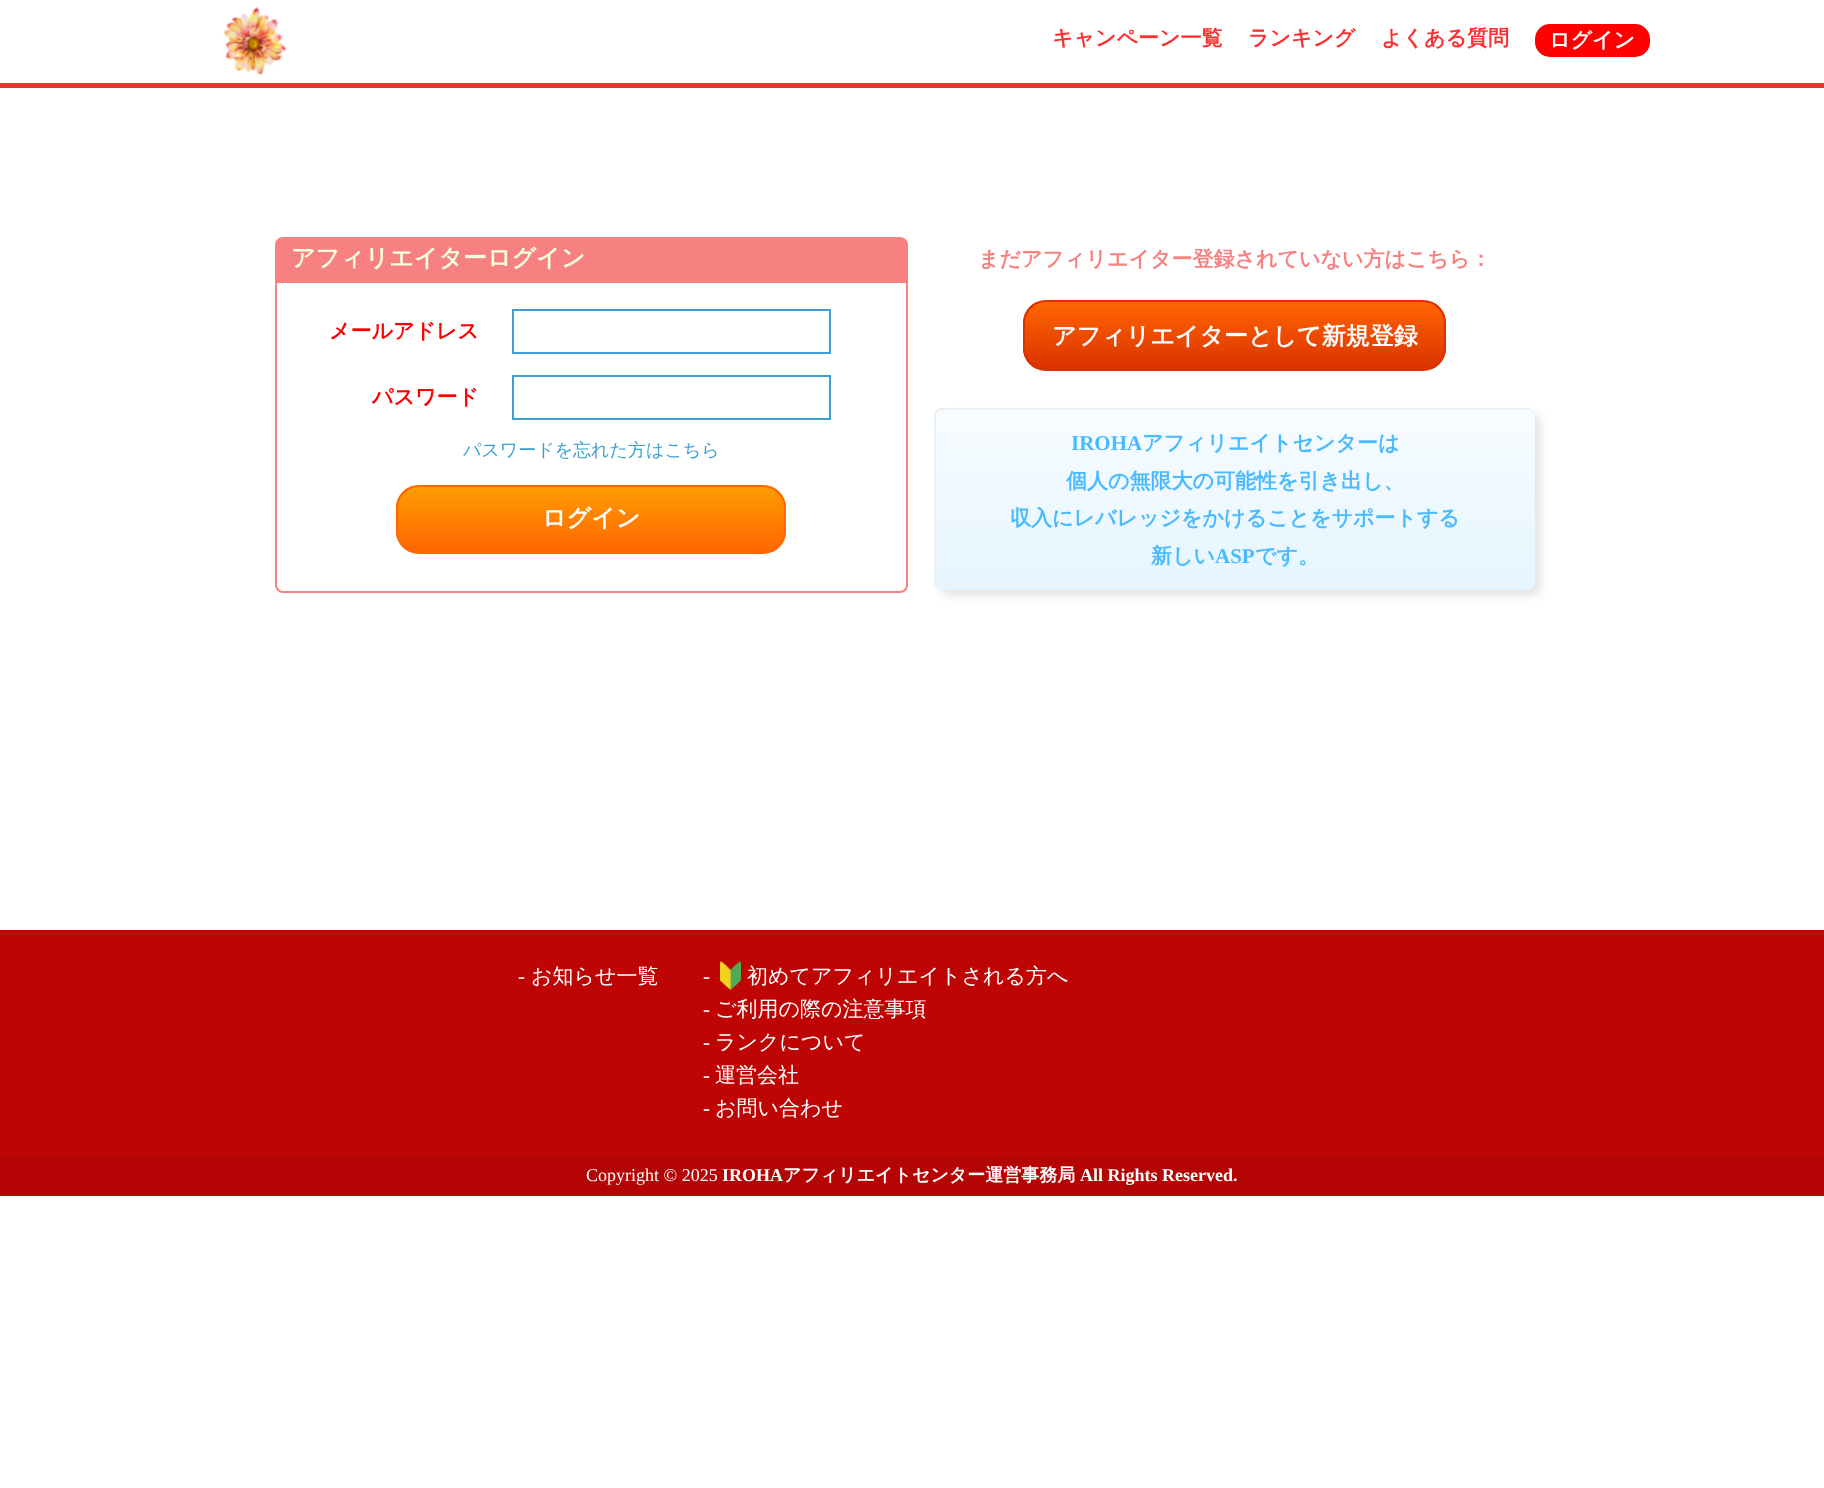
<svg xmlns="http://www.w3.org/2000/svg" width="1824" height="1488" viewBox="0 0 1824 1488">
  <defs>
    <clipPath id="clip1"><rect x="396" y="485" width="390" height="69" rx="23"/></clipPath>
    <linearGradient id="g1" gradientUnits="userSpaceOnUse" x1="591" y1="486" x2="591" y2="552"><stop offset="0" stop-color="#ff9d02"/><stop offset="1" stop-color="#ff6600"/></linearGradient>
    <clipPath id="clip2"><rect x="1023" y="300" width="423" height="71" rx="23"/></clipPath>
    <linearGradient id="g2" gradientUnits="userSpaceOnUse" x1="1235" y1="301" x2="1235" y2="369"><stop offset="0" stop-color="#ff6600"/><stop offset="1" stop-color="#db3200"/></linearGradient>
    <filter id="blur1" x="-50%" y="-200%" width="200%" height="500%"><feGaussianBlur stdDeviation="4"/></filter>
    <clipPath id="clip3"><rect x="935" y="408" width="600" height="182" rx="8"/></clipPath>
    <linearGradient id="g3" gradientUnits="userSpaceOnUse" x1="1235" y1="229" x2="1235" y2="410"><stop offset="0" stop-color="#f7fcff"/><stop offset="1" stop-color="#e6f5ff"/></linearGradient>
    <linearGradient id="g4" gradientUnits="userSpaceOnUse" x1="1235" y1="410" x2="1235" y2="590"><stop offset="0" stop-color="#f7fcff"/><stop offset="1" stop-color="#e6f5ff"/></linearGradient>
  </defs>
  <rect width="100%" height="100%" fill="#ffffff"/>
  <rect x="0" y="83" width="1824" height="5" fill="#fe2e2e"/>
  <image x="223" y="7" width="64" height="68" href="img1.png"/>
  <text x="1052" y="45" font-family="WenQuanYi Zen Hei" font-size="21" font-weight="bold" fill="#fe2e2e">キャンペーン一覧</text>
  <text x="1248" y="45" font-family="WenQuanYi Zen Hei" font-size="21" font-weight="bold" fill="#fe2e2e">ランキング</text>
  <text x="1381" y="45" font-family="WenQuanYi Zen Hei" font-size="21" font-weight="bold" fill="#fe2e2e">よくある質問</text>
  <rect x="1535" y="24" width="115" height="33" rx="15" fill="#ff0000"/>
  <text x="1549" y="47" font-family="WenQuanYi Zen Hei" font-size="21" font-weight="bold" fill="#ffffff">ログイン</text>
  <path d="M283 238H900C904 238 907 241 907 245V280H276V245C276 241 279 238 283 238Z" fill="#f78181" stroke="#f78181" stroke-width="2"/>
  <text x="291" y="266" font-family="WenQuanYi Zen Hei" font-size="24" font-weight="bold" fill="#f5ffe0">アフィリエイターログイン</text>
  <path d="M276 282H907V585C907 589 904 592 900 592H283C279 592 276 589 276 585Z" fill="none" stroke="#f78181" stroke-width="2"/>
  <text x="329" y="338" font-family="WenQuanYi Zen Hei" font-size="21" font-weight="bold" fill="#ff0000">メールアドレス</text>
  <rect x="513" y="310" width="317" height="43" fill="none" stroke="#3ca0d0" stroke-width="2"/>
  <text x="372" y="404" font-family="WenQuanYi Zen Hei" font-size="21" font-weight="bold" fill="#ff0000">パスワード</text>
  <rect x="513" y="376" width="317" height="43" fill="none" stroke="#3ca0d0" stroke-width="2"/>
  <text x="463" y="456" font-family="WenQuanYi Zen Hei" font-size="18" font-weight="500" fill="#3ca0d0">パスワードを忘れた方はこちら</text>
  <g clip-path="url(#clip1)">
    <rect x="396" y="486" width="390" height="66" fill="url(#g1)"/>
  </g>
  <rect x="397" y="486" width="388" height="67" rx="22" fill="none" stroke="#ff6600" stroke-width="2"/>
  <text x="542" y="526" font-family="WenQuanYi Zen Hei" font-size="24" font-weight="bold" fill="#ffffff">ログイン</text>
  <text x="978" y="266" font-family="WenQuanYi Zen Hei" font-size="21" font-weight="bold" fill="#f78181">まだアフィリエイター登録されていない方はこちら：</text>
  <g clip-path="url(#clip2)">
    <rect x="1023" y="302" width="423" height="67" fill="url(#g2)"/>
  </g>
  <rect x="1024" y="301" width="421" height="69" rx="22" fill="none" stroke="#db3200" stroke-width="2"/>
  <text x="1052" y="344" font-family="WenQuanYi Zen Hei" font-size="24" font-weight="bold" fill="#ffffff">アフィリエイターとして新規登録</text>
  <rect x="941" y="414" width="600" height="182" rx="8" fill="#e5e5e5" filter="url(#blur1)"/>
  <g clip-path="url(#clip3)">
    <rect x="935" y="408" width="600" height="2" fill="url(#g3)"/>
    <path d="M935 410H1535V582C1535 586.5 1531.5 590 1527 590H943C938.5 590 935 586.5 935 582Z" fill="url(#g4)"/>
  </g>
  <path d="M942 408H1527C1531 408 1534 411 1534 416V582C1534 586 1531 590 1527 590H942C938 590 934 586 934 582V416C934 411 938 408 942 408ZM942 410H1527C1531 410 1534 412 1534 416V582C1534 586 1531 590 1527 590H942C939 590 936 586 936 582V416C936 412 939 410 942 410Z" fill="#eeeeee" fill-rule="evenodd"/>
  <text x="1071" y="450" font-family="Liberation Serif" font-size="21" font-weight="bold" fill="#49baff">IROHA</text>
  <text x="1142" y="450" font-family="WenQuanYi Zen Hei" font-size="21" font-weight="bold" fill="#49baff">アフィリエイトセンターは</text>
  <text x="1066" y="488" font-family="WenQuanYi Zen Hei" font-size="21" font-weight="bold" fill="#49baff">個人の無限大の可能性を引き出し、</text>
  <text x="1010" y="525" font-family="WenQuanYi Zen Hei" font-size="21" font-weight="bold" fill="#49baff">収入にレバレッジをかけることをサポートする</text>
  <text x="1151" y="563" font-family="WenQuanYi Zen Hei" font-size="21" font-weight="bold" fill="#49baff">新しい</text>
  <text x="1215" y="563" font-family="Liberation Serif" font-size="21" font-weight="bold" fill="#49baff">ASP</text>
  <text x="1255" y="563" font-family="WenQuanYi Zen Hei" font-size="21" font-weight="bold" fill="#49baff">です。</text>
  <rect x="0" y="930" width="1824" height="225" fill="#bf0404"/>
  <text x="518" y="983" font-family="Liberation Serif" font-size="21" fill="#ffffff">-</text>
  <text x="531" y="983" font-family="WenQuanYi Zen Hei" font-size="21" font-weight="500" fill="#ffffff">お知らせ一覧</text>
  <image x="720" y="961" width="21" height="29" href="img2.png"/>
  <text x="703" y="983" font-family="Liberation Serif" font-size="21" fill="#ffffff">-</text>
  <text x="747" y="983" font-family="WenQuanYi Zen Hei" font-size="21" font-weight="500" fill="#ffffff">初めてアフィリエイトされる方へ</text>
  <text x="703" y="1016" font-family="Liberation Serif" font-size="21" fill="#ffffff">-</text>
  <text x="715" y="1016" font-family="WenQuanYi Zen Hei" font-size="21" font-weight="500" fill="#ffffff">ご利用の際の注意事項</text>
  <text x="703" y="1049" font-family="Liberation Serif" font-size="21" fill="#ffffff">-</text>
  <text x="715" y="1049" font-family="WenQuanYi Zen Hei" font-size="21" font-weight="500" fill="#ffffff">ランクについて</text>
  <text x="703" y="1082" font-family="Liberation Serif" font-size="21" fill="#ffffff">-</text>
  <text x="715" y="1082" font-family="WenQuanYi Zen Hei" font-size="21" font-weight="500" fill="#ffffff">運営会社</text>
  <text x="703" y="1115" font-family="Liberation Serif" font-size="21" fill="#ffffff">-</text>
  <text x="715" y="1115" font-family="WenQuanYi Zen Hei" font-size="21" font-weight="500" fill="#ffffff">お問い合わせ</text>
  <rect x="0" y="1155" width="1824" height="41" fill="#b40404"/>
  <text x="586" y="1181" font-family="Liberation Serif" font-size="18" fill="#ffffff">Copyright © 2025</text>
  <text x="722" y="1181" font-family="Liberation Serif" font-size="18" font-weight="bold" fill="#ffffff">IROHA</text>
  <text x="783" y="1181" font-family="WenQuanYi Zen Hei" font-size="18" font-weight="bold" fill="#ffffff">アフィリエイトセンター運営事務局</text>
  <text x="1080" y="1181" font-family="Liberation Serif" font-size="18" font-weight="bold" fill="#ffffff">All Rights Reserved.</text>
</svg>
